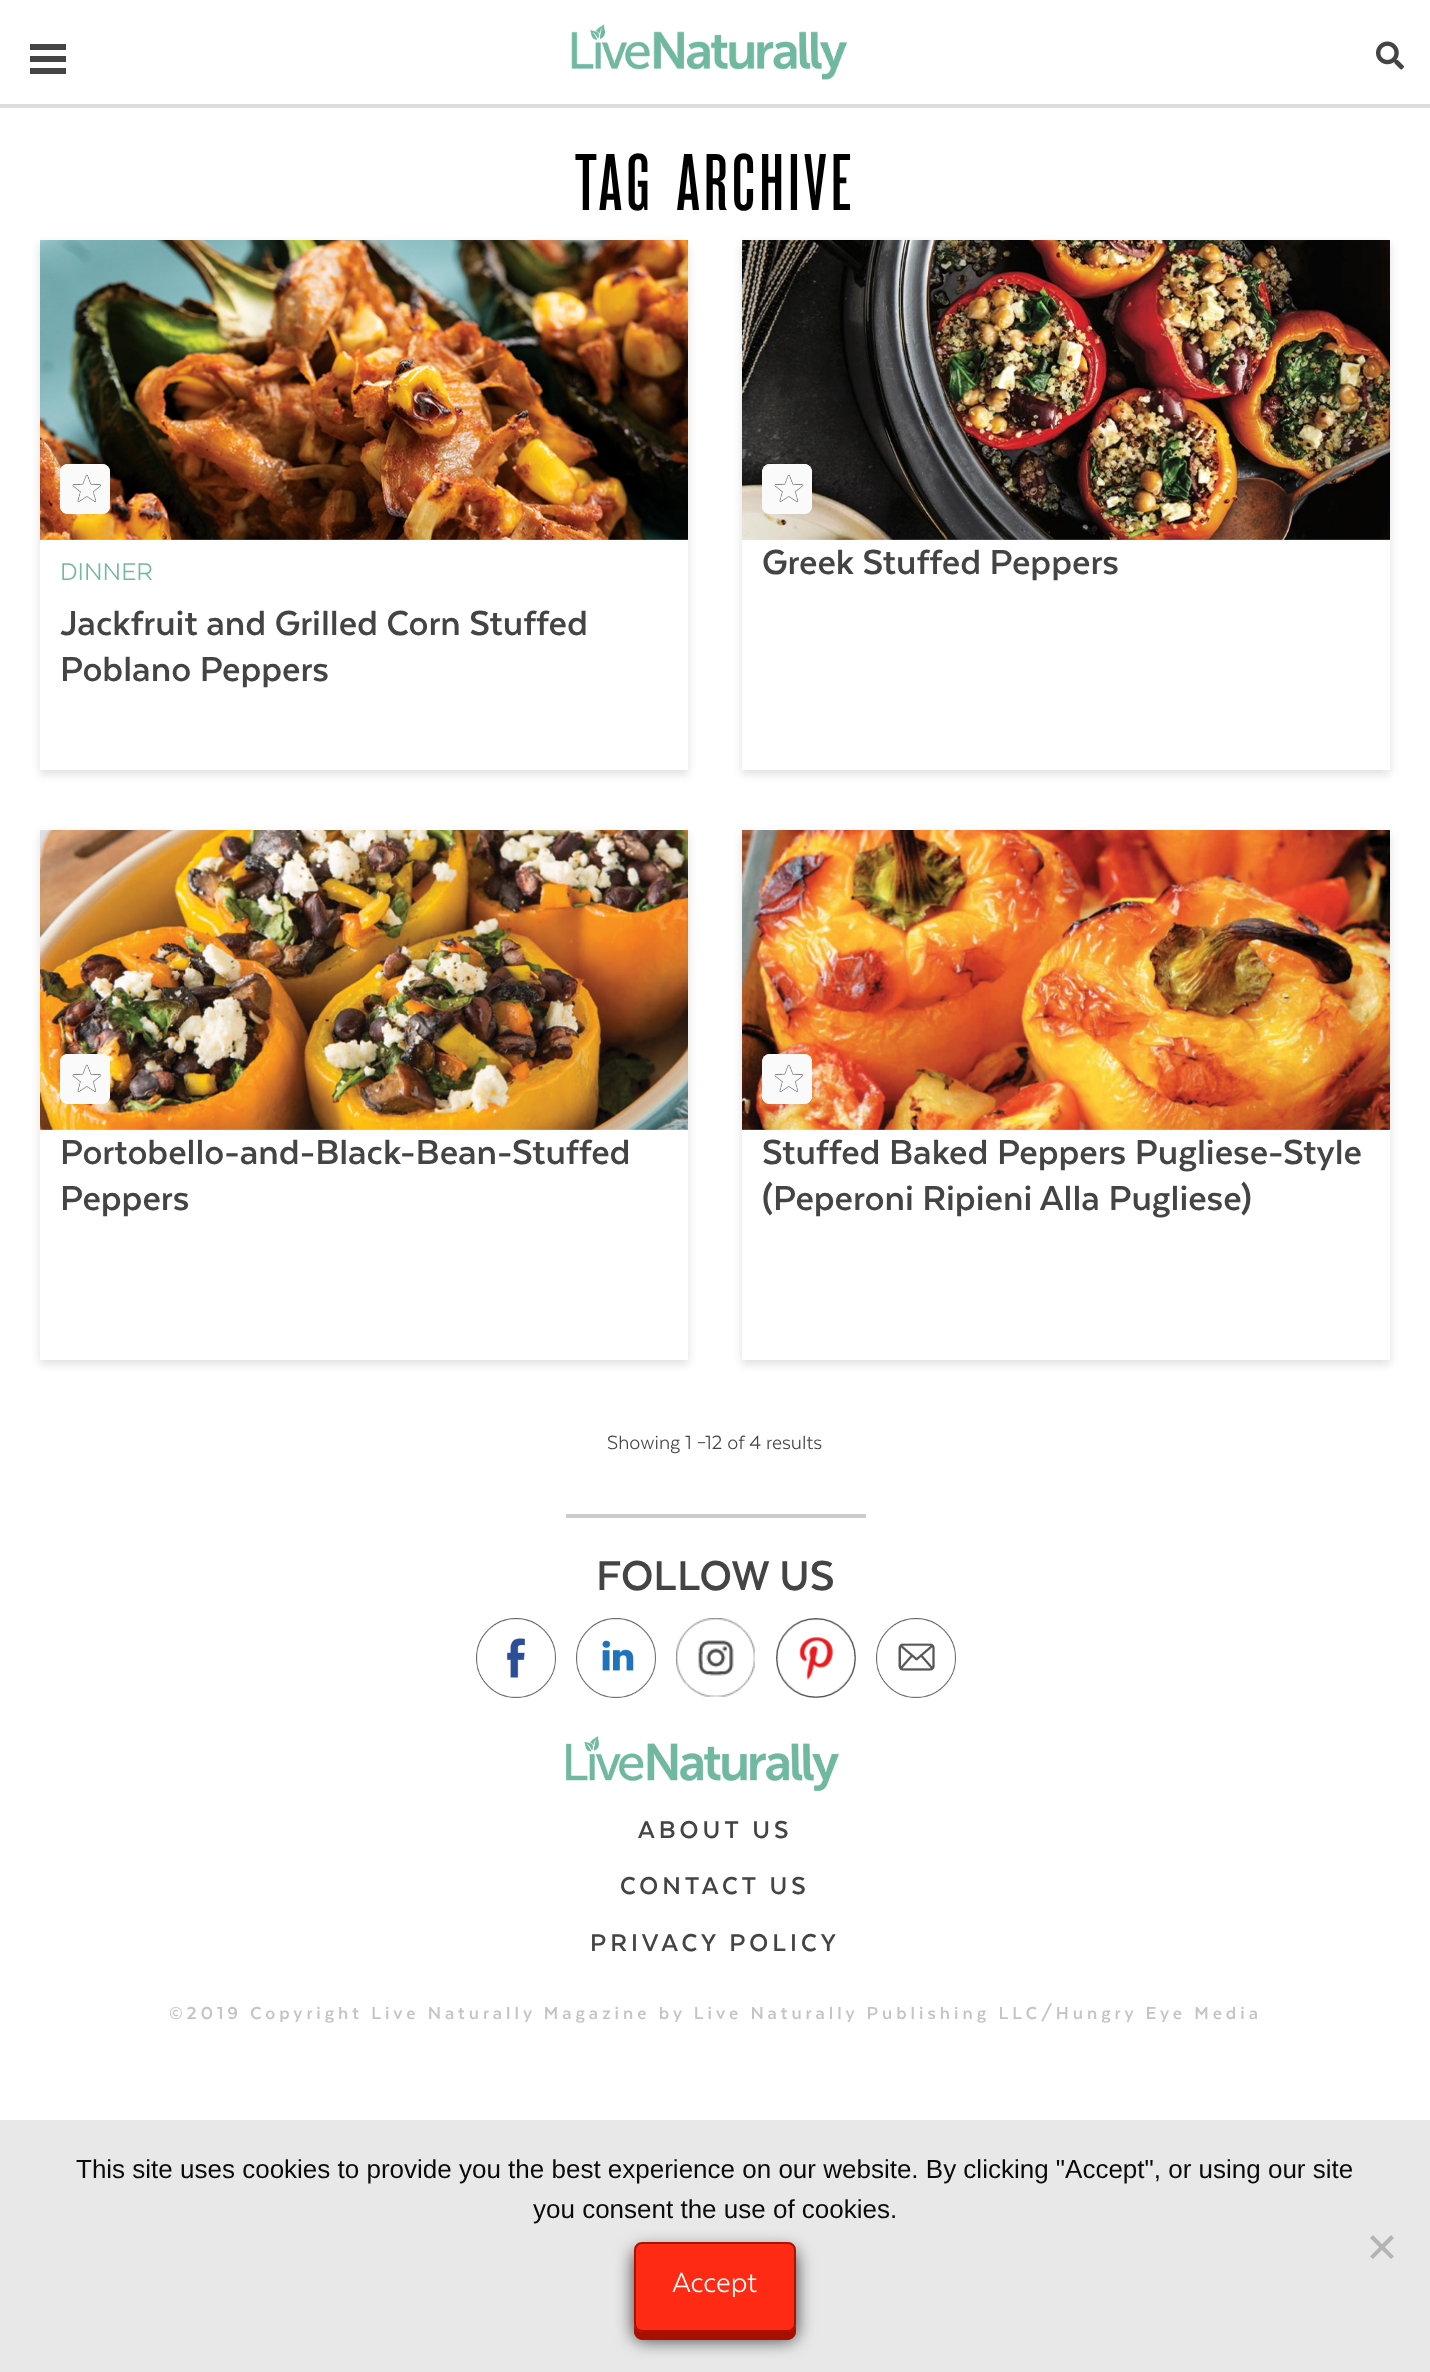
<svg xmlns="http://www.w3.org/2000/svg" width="1430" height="2372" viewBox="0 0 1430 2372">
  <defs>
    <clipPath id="clip1"><path d="M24 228H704V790H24ZM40 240H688V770H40Z" clip-rule="evenodd"/></clipPath>
    <filter id="blur1" x="-50%" y="-200%" width="200%" height="500%"><feGaussianBlur stdDeviation="5"/></filter>
    <clipPath id="clip2"><path d="M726 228H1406V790H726ZM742 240H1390V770H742Z" clip-rule="evenodd"/></clipPath>
    <clipPath id="clip3"><path d="M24 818H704V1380H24ZM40 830H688V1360H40Z" clip-rule="evenodd"/></clipPath>
    <clipPath id="clip4"><path d="M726 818H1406V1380H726ZM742 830H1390V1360H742Z" clip-rule="evenodd"/></clipPath>
    <filter id="blur2" x="-50%" y="-200%" width="200%" height="500%"><feGaussianBlur stdDeviation="9"/></filter>
  </defs>
  <rect width="100%" height="100%" fill="#ffffff"/>
  <rect x="0" y="104" width="1430" height="4" fill="#dddddd"/>
  <rect x="30" y="44" width="36" height="6" fill="#444444"/>
  <rect x="30" y="56" width="36" height="6" fill="#444444"/>
  <rect x="30" y="68" width="36" height="6" fill="#444444"/>
  <image x="571" y="24" width="277" height="56" href="img1.png"/>
  <image x="1376" y="41" width="28" height="29" href="img2.png"/>
  <text x="575" y="210" font-family="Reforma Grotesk" font-size="80" font-weight="500" letter-spacing="4" fill="#000000">TAG ARCHIVE</text>
  <g clip-path="url(#clip1)">
    <rect x="40" y="244" width="648" height="530" fill="#000000" fill-opacity="0.13" filter="url(#blur1)"/>
  </g>
  <image x="40" y="240" width="648" height="300" href="img3.png"/>
  <rect x="60" y="464" width="50" height="50" rx="8" fill="#ffffff"/>
  <image x="60" y="464" width="50" height="50" href="img4.png"/>
  <text x="60" y="580" font-family="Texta" font-size="28" fill="#72b7a0">DINNER</text>
  <text x="60" y="635" font-family="'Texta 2'" font-size="40" fill="#444444">Jackfruit and Grilled Corn Stuffed</text>
  <text x="60" y="681" font-family="'Texta 2'" font-size="40" fill="#444444">Poblano Peppers</text>
  <g clip-path="url(#clip2)">
    <rect x="742" y="244" width="648" height="530" fill="#000000" fill-opacity="0.13" filter="url(#blur1)"/>
  </g>
  <image x="742" y="240" width="648" height="300" href="img5.png"/>
  <rect x="762" y="464" width="50" height="50" rx="8" fill="#ffffff"/>
  <image x="762" y="464" width="50" height="50" href="img6.png"/>
  <text x="762" y="574" font-family="'Texta 2'" font-size="40" fill="#444444">Greek Stuffed Peppers</text>
  <g clip-path="url(#clip3)">
    <rect x="40" y="834" width="648" height="530" fill="#000000" fill-opacity="0.13" filter="url(#blur1)"/>
  </g>
  <image x="40" y="830" width="648" height="300" href="img7.png"/>
  <rect x="60" y="1054" width="50" height="50" rx="8" fill="#ffffff"/>
  <image x="60" y="1054" width="50" height="50" href="img8.png"/>
  <text x="60" y="1164" font-family="'Texta 2'" font-size="40" fill="#444444">Portobello-and-Black-Bean-Stuffed</text>
  <text x="60" y="1210" font-family="'Texta 2'" font-size="40" fill="#444444">Peppers</text>
  <g clip-path="url(#clip4)">
    <rect x="742" y="834" width="648" height="530" fill="#000000" fill-opacity="0.13" filter="url(#blur1)"/>
  </g>
  <image x="742" y="830" width="648" height="300" href="img9.png"/>
  <rect x="762" y="1054" width="50" height="50" rx="8" fill="#ffffff"/>
  <image x="762" y="1054" width="50" height="50" href="img10.png"/>
  <text x="762" y="1164" font-family="'Texta 2'" font-size="40" fill="#444444">Stuffed Baked Peppers Pugliese-Style</text>
  <text x="762" y="1210" font-family="'Texta 2'" font-size="40" fill="#444444">(Peperoni Ripieni Alla Pugliese)</text>
  <text x="607" y="1449" font-family="Texta" font-size="22" fill="#444444">Showing 1 –12 of 4 results</text>
  <rect x="566" y="1514" width="300" height="4" fill="#cccccc"/>
  <text x="596" y="1590" font-family="'Texta 2'" font-size="48" fill="#444444">FOLLOW US</text>
  <image x="476" y="1618" width="80" height="80" href="img11.png"/>
  <image x="576" y="1618" width="80" height="80" href="img12.png"/>
  <image x="676" y="1618" width="79" height="79" href="img13.png"/>
  <image x="776" y="1618" width="80" height="80" href="img14.png"/>
  <image x="876" y="1618" width="80" height="80" href="img15.png"/>
  <image x="566" y="1736" width="273" height="55" href="img16.png"/>
  <text x="638" y="1838" font-family="'Texta 2'" font-size="28" letter-spacing="4" fill="#444444">ABOUT US</text>
  <text x="620" y="1894" font-family="'Texta 2'" font-size="28" letter-spacing="4" fill="#444444">CONTACT US</text>
  <text x="590" y="1951" font-family="'Texta 2'" font-size="28" letter-spacing="4" fill="#444444">PRIVACY POLICY</text>
  <text x="169" y="2019" font-family="'Texta 2'" font-size="20" letter-spacing="4" fill="#c4c4c4">©2019 Copyright Live Naturally Magazine by Live Naturally Publishing LLC/Hungry Eye Media</text>
  <rect x="0" y="2120" width="1430" height="252" fill="#e8e8e8"/>
  <text x="76" y="2178" font-family="Liberation Sans" font-size="26" fill="#0a0a0a">This site uses cookies to provide you the best experience on our website. By clicking "Accept", or using our site</text>
  <text x="533" y="2218" font-family="Liberation Sans" font-size="26" fill="#0a0a0a">you consent the use of cookies.</text>
  <path d="M1391 2235L1394 2238L1373 2259L1370 2256.5Z" fill="#b4b4b4"/>
  <path d="M1370 2238L1373 2235L1394 2256.5L1391 2259Z" fill="#b4b4b4"/>
  <rect x="634" y="2250" width="162" height="90" rx="8" fill="#000000" fill-opacity="0.75" filter="url(#blur2)"/>
  <path d="M634 2324V2332C634 2336 638 2340 642 2340H788C792 2340 796 2336 796 2332V2324C796 2328 792 2332 788 2332H642C638 2332 634 2328 634 2324Z" fill="#a71000"/>
  <rect x="635" y="2243" width="160" height="88" rx="7" fill="#ff2a13" stroke="#ac1100" stroke-width="2"/>
  <text x="672" y="2292" font-family="Texta" font-size="32" fill="#ffffff">Accept</text>
</svg>
